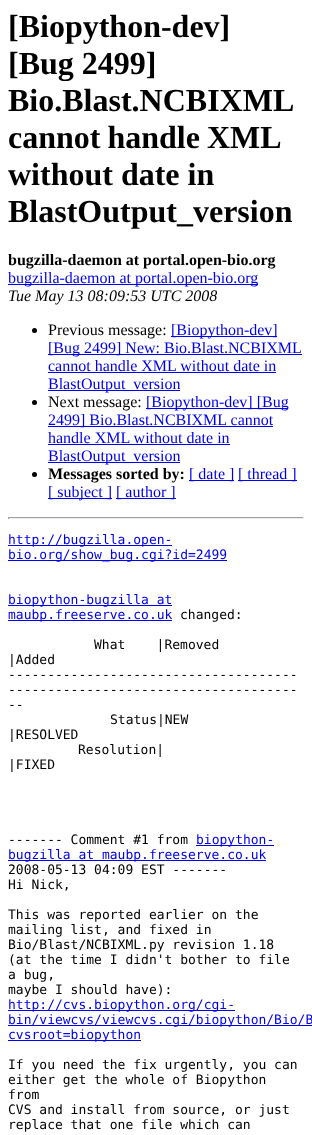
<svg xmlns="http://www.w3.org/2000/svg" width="312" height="1135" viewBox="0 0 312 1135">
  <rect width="100%" height="100%" fill="#ffffff"/>
  <text x="8" y="37" font-family="Liberation Serif" font-size="32" font-weight="bold" fill="#000000">[Biopython-dev]</text>
  <text x="8" y="74" font-family="Liberation Serif" font-size="32" font-weight="bold" fill="#000000">[Bug 2499]</text>
  <text x="8" y="111" font-family="Liberation Serif" font-size="32" font-weight="bold" fill="#000000">Bio.Blast.NCBIXML</text>
  <text x="8" y="148" word-spacing="-1" font-family="Liberation Serif" font-size="32" font-weight="bold" fill="#000000">cannot handle XML</text>
  <text x="8" y="185" font-family="Liberation Serif" font-size="32" font-weight="bold" fill="#000000">without date in</text>
  <text x="8" y="222" font-family="Liberation Serif" font-size="32" font-weight="bold" fill="#000000">BlastOutput_version</text>
  <text x="8" y="265" font-family="Liberation Serif" font-size="16" font-weight="bold" fill="#000000">bugzilla-daemon at portal.open-bio.org</text>
  <rect x="8" y="284" width="250" height="1" fill="#0000ee"/>
  <text x="8" y="283" font-family="Liberation Serif" font-size="16" fill="#0000ee">bugzilla-daemon at portal.open-bio.org</text>
  <text x="8" y="301" font-family="Liberation Serif" font-size="16" font-style="italic" fill="#000000">Tue May 13 08:09:53 UTC 2008</text>
  <circle cx="34.5" cy="330.5" r="2.5" fill="#000000"/>
  <text x="48" y="335" font-family="Liberation Serif" font-size="16" fill="#000000">Previous message:</text>
  <rect x="171" y="336" width="106" height="1" fill="#0000ee"/>
  <text x="171" y="335" font-family="Liberation Serif" font-size="16" fill="#0000ee">[Biopython-dev]</text>
  <rect x="48" y="354" width="254" height="1" fill="#0000ee"/>
  <text x="48" y="353" font-family="Liberation Serif" font-size="16" fill="#0000ee">[Bug 2499] New: Bio.Blast.NCBIXML</text>
  <text x="48" y="371" font-family="Liberation Serif" font-size="16" fill="#0000ee">cannot handle XML without date in</text>
  <rect x="48" y="372" width="228" height="1" fill="#0000ee"/>
  <rect x="48" y="390" width="132" height="1" fill="#0000ee"/>
  <text x="48" y="389" font-family="Liberation Serif" font-size="16" fill="#0000ee">BlastOutput_version</text>
  <circle cx="34.5" cy="402.5" r="2.5" fill="#000000"/>
  <text x="48" y="407" font-family="Liberation Serif" font-size="16" fill="#000000">Next message:</text>
  <rect x="146" y="408" width="142" height="1" fill="#0000ee"/>
  <text x="146" y="407" font-family="Liberation Serif" font-size="16" fill="#0000ee">[Biopython-dev] [Bug</text>
  <rect x="48" y="426" width="225" height="1" fill="#0000ee"/>
  <text x="48" y="425" font-family="Liberation Serif" font-size="16" fill="#0000ee">2499] Bio.Blast.NCBIXML cannot</text>
  <text x="48" y="443" font-family="Liberation Serif" font-size="16" fill="#0000ee">handle XML without date in</text>
  <rect x="48" y="444" width="182" height="1" fill="#0000ee"/>
  <rect x="48" y="462" width="132" height="1" fill="#0000ee"/>
  <text x="48" y="461" font-family="Liberation Serif" font-size="16" fill="#0000ee">BlastOutput_version</text>
  <circle cx="34.5" cy="474.5" r="2.5" fill="#000000"/>
  <text x="48" y="479" font-family="Liberation Serif" font-size="16" font-weight="bold" fill="#000000">Messages sorted by:</text>
  <rect x="189" y="480" width="45" height="1" fill="#0000ee"/>
  <text x="189" y="479" font-family="Liberation Serif" font-size="16" fill="#0000ee">[ date ]</text>
  <rect x="238" y="480" width="59" height="1" fill="#0000ee"/>
  <text x="238" y="479" font-family="Liberation Serif" font-size="16" fill="#0000ee">[ thread ]</text>
  <rect x="48" y="498" width="64" height="1" fill="#0000ee"/>
  <text x="48" y="497" font-family="Liberation Serif" font-size="16" fill="#0000ee">[ subject ]</text>
  <rect x="116" y="498" width="60" height="1" fill="#0000ee"/>
  <text x="116" y="497" font-family="Liberation Serif" font-size="16" fill="#0000ee">[ author ]</text>
  <rect x="8" y="517" width="296" height="1" fill="#9f9f9f"/>
  <rect x="303" y="517" width="1" height="2" fill="#eeeeee"/>
  <rect x="8" y="518" width="296" height="1" fill="#eeeeee"/>
  <rect x="8" y="517" width="1" height="2" fill="#9f9f9f"/>
  <rect x="8" y="545" width="164" height="1" fill="#0000ee"/>
  <text x="8" y="544" font-family="DejaVu Sans Mono" font-size="13" fill="#0000ee">http://bugzilla.open-</text>
  <rect x="8" y="560" width="219" height="1" fill="#0000ee"/>
  <text x="8" y="559" font-family="DejaVu Sans Mono" font-size="13" fill="#0000ee">bio.org/show_bug.cgi?id=2499</text>
  <rect x="8" y="605" width="164" height="1" fill="#0000ee"/>
  <text x="8" y="604" font-family="DejaVu Sans Mono" font-size="13" fill="#0000ee">biopython-bugzilla at</text>
  <rect x="8" y="620" width="164" height="1" fill="#0000ee"/>
  <text x="8" y="619" font-family="DejaVu Sans Mono" font-size="13" fill="#0000ee">maubp.freeserve.co.uk</text>
  <text x="180" y="619" font-family="DejaVu Sans Mono" font-size="13" fill="#000000">changed:</text>
  <text x="94" y="649" font-family="DejaVu Sans Mono" font-size="13" fill="#000000" xml:space="preserve">What    |Removed</text>
  <text x="8" y="664" font-family="DejaVu Sans Mono" font-size="13" fill="#000000">|Added</text>
  <text x="8" y="679" font-family="DejaVu Sans Mono" font-size="13" fill="#000000">-------------------------------------</text>
  <text x="8" y="694" font-family="DejaVu Sans Mono" font-size="13" fill="#000000">-------------------------------------</text>
  <text x="8" y="709" font-family="DejaVu Sans Mono" font-size="13" fill="#000000">--</text>
  <text x="110" y="724" font-family="DejaVu Sans Mono" font-size="13" fill="#000000">Status|NEW</text>
  <text x="8" y="739" font-family="DejaVu Sans Mono" font-size="13" fill="#000000">|RESOLVED</text>
  <text x="78" y="754" font-family="DejaVu Sans Mono" font-size="13" fill="#000000">Resolution|</text>
  <text x="8" y="769" font-family="DejaVu Sans Mono" font-size="13" fill="#000000">|FIXED</text>
  <text x="8" y="844" font-family="DejaVu Sans Mono" font-size="13" fill="#000000">------- Comment #1 from</text>
  <rect x="196" y="845" width="78" height="1" fill="#0000ee"/>
  <text x="196" y="844" font-family="DejaVu Sans Mono" font-size="13" fill="#0000ee">biopython-</text>
  <rect x="8" y="860" width="258" height="1" fill="#0000ee"/>
  <text x="8" y="859" font-family="DejaVu Sans Mono" font-size="13" fill="#0000ee">bugzilla at maubp.freeserve.co.uk</text>
  <text x="8" y="874" font-family="DejaVu Sans Mono" font-size="13" fill="#000000">2008-05-13 04:09 EST -------</text>
  <text x="8" y="889" font-family="DejaVu Sans Mono" font-size="13" fill="#000000">Hi Nick,</text>
  <text x="8" y="919" font-family="DejaVu Sans Mono" font-size="13" fill="#000000">This was reported earlier on the</text>
  <text x="8" y="934" font-family="DejaVu Sans Mono" font-size="13" fill="#000000">mailing list, and fixed in</text>
  <text x="8" y="949" font-family="DejaVu Sans Mono" font-size="13" fill="#000000">Bio/Blast/NCBIXML.py revision 1.18</text>
  <text x="8" y="964" font-family="DejaVu Sans Mono" font-size="13" fill="#000000">(at the time I didn't bother to file</text>
  <text x="8" y="979" font-family="DejaVu Sans Mono" font-size="13" fill="#000000">a bug,</text>
  <text x="8" y="994" font-family="DejaVu Sans Mono" font-size="13" fill="#000000">maybe I should have):</text>
  <rect x="8" y="1010" width="227" height="1" fill="#0000ee"/>
  <text x="8" y="1009" font-family="DejaVu Sans Mono" font-size="13" fill="#0000ee">http://cvs.biopython.org/cgi-</text>
  <rect x="8" y="1025" width="304" height="1" fill="#0000ee"/>
  <text x="8" y="1024" font-family="DejaVu Sans Mono" font-size="13" fill="#0000ee">bin/viewcvs/viewcvs.cgi/biopython/Bio/B</text>
  <rect x="8" y="1040" width="133" height="1" fill="#0000ee"/>
  <text x="8" y="1039" font-family="DejaVu Sans Mono" font-size="13" fill="#0000ee">cvsroot=biopython</text>
  <text x="8" y="1069" font-family="DejaVu Sans Mono" font-size="13" fill="#000000">If you need the fix urgently, you can</text>
  <text x="8" y="1084" font-family="DejaVu Sans Mono" font-size="13" fill="#000000">either get the whole of Biopython</text>
  <text x="8" y="1099" font-family="DejaVu Sans Mono" font-size="13" fill="#000000">from</text>
  <text x="8" y="1114" font-family="DejaVu Sans Mono" font-size="13" fill="#000000">CVS and install from source, or just</text>
  <text x="8" y="1129" font-family="DejaVu Sans Mono" font-size="13" fill="#000000">replace that one file which can</text>
</svg>
